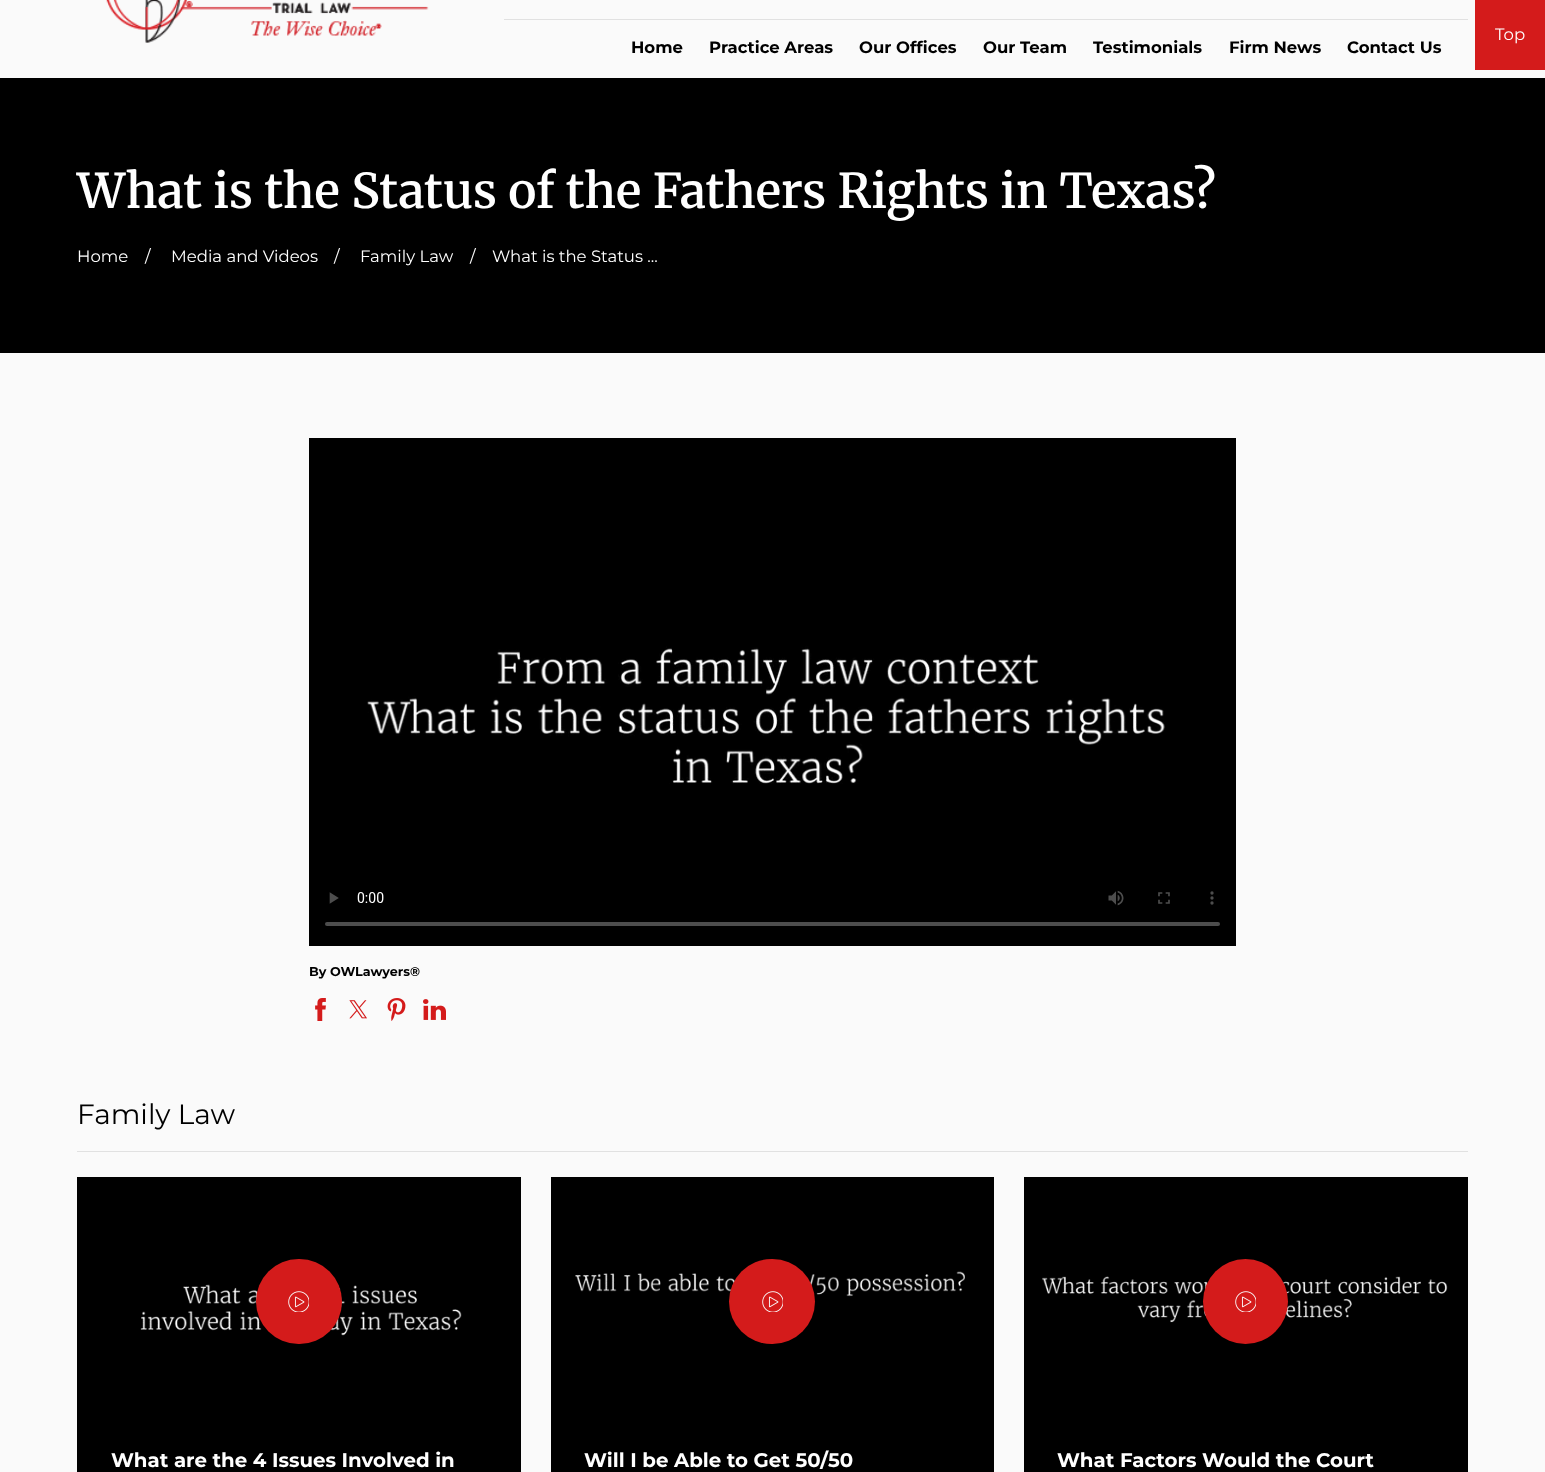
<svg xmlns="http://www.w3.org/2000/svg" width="1545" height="1472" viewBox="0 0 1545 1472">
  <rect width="100%" height="100%" fill="#000000"/>
  <rect x="0" y="0" width="1545" height="78" fill="#fafafa"/>
  <rect x="1475" y="0" width="70" height="70" fill="#d41b1b"/>
  <text x="1495" y="40" font-family="Montserrat" font-size="16.5" fill="#ffffff">Top</text>
  <image x="106" y="0" width="323" height="43" href="img1.png"/>
  <rect x="504" y="19" width="964" height="1" fill="#e1e1e1"/>
  <text x="631" y="53" font-family="Montserrat" font-size="16.5" font-weight="bold" fill="#000000">Home</text>
  <text x="709" y="53" font-family="Montserrat" font-size="16.5" font-weight="bold" fill="#000000">Practice Areas</text>
  <text x="859" y="53" font-family="Montserrat" font-size="16.5" font-weight="bold" fill="#000000">Our Offices</text>
  <text x="983" y="53" font-family="Montserrat" font-size="16.5" font-weight="bold" fill="#000000">Our Team</text>
  <text x="1093" y="53" font-family="Montserrat" font-size="16.5" font-weight="bold" fill="#000000">Testimonials</text>
  <text x="1229" y="53" font-family="Montserrat" font-size="16.5" font-weight="bold" fill="#000000">Firm News</text>
  <text x="1347" y="53" font-family="Montserrat" font-size="16.5" font-weight="bold" fill="#000000">Contact Us</text>
  <text x="77" y="208" font-family="Merriweather" font-size="47.75" font-weight="600" fill="#ffffff">What is the Status of the Fathers Rights in Texas?</text>
  <text x="77" y="262" font-family="Montserrat" font-size="16.5" fill="#ffffff">Home</text>
  <text x="145" y="262" font-family="Montserrat" font-size="16.5" fill="#ffffff">/</text>
  <text x="171" y="262" font-family="Montserrat" font-size="16.5" fill="#ffffff">Media and Videos</text>
  <text x="334" y="262" font-family="Montserrat" font-size="16.5" fill="#ffffff">/</text>
  <text x="360" y="262" font-family="Montserrat" font-size="16.5" fill="#ffffff">Family Law</text>
  <text x="470" y="262" font-family="Montserrat" font-size="16.5" fill="#ffffff">/</text>
  <text x="492" y="262" font-family="Montserrat" font-size="16.5" fill="#ffffff">What is the Status ...</text>
  <rect x="0" y="353" width="1545" height="1119" fill="#fafafa"/>
  <image x="309" y="438" width="927" height="508" href="img2.png"/>
  <text x="309" y="976" font-family="Montserrat" font-size="12.75" font-weight="bold" fill="#000000">By OWLawyers®</text>
  <image x="315" y="998" width="11" height="23" href="img3.png"/>
  <image x="349" y="1000" width="18" height="19" href="img4.png"/>
  <image x="387" y="998" width="19" height="23" href="img5.png"/>
  <image x="423" y="999" width="23" height="21" href="img6.png"/>
  <rect x="77" y="1151" width="1391" height="1" fill="#e1e1e1"/>
  <text x="77" y="1124" font-family="Montserrat" font-size="28" fill="#000000">Family Law</text>
  <rect x="77" y="1177" width="444" height="295" fill="#000000"/>
  <image x="140" y="1284" width="322" height="52" href="img8.png"/>
  <rect x="256" y="1259" width="86" height="85" rx="42.5" fill="#d41b1b"/>
  <image x="288" y="1291" width="21" height="21" href="img7.png"/>
  <text x="111" y="1467" font-family="Montserrat" font-size="19.75" font-weight="bold" fill="#ffffff">What are the 4 Issues Involved in</text>
  <rect x="551" y="1177" width="443" height="295" fill="#000000"/>
  <image x="575" y="1271" width="390" height="26" href="img9.png"/>
  <rect x="729" y="1259" width="86" height="85" rx="42.5" fill="#d41b1b"/>
  <image x="762" y="1291" width="21" height="21" href="img7.png"/>
  <text x="584" y="1467" font-family="Montserrat" font-size="19.75" font-weight="bold" fill="#ffffff">Will I be Able to Get 50/50</text>
  <rect x="1024" y="1177" width="444" height="295" fill="#000000"/>
  <image x="1042" y="1276" width="406" height="47" href="img10.png"/>
  <circle cx="1245.5" cy="1301.5" r="42.5" fill="#d41b1b"/>
  <image x="1235" y="1291" width="21" height="21" href="img7.png"/>
  <text x="1057" y="1467" font-family="Montserrat" font-size="19.75" font-weight="bold" fill="#ffffff">What Factors Would the Court</text>
</svg>
